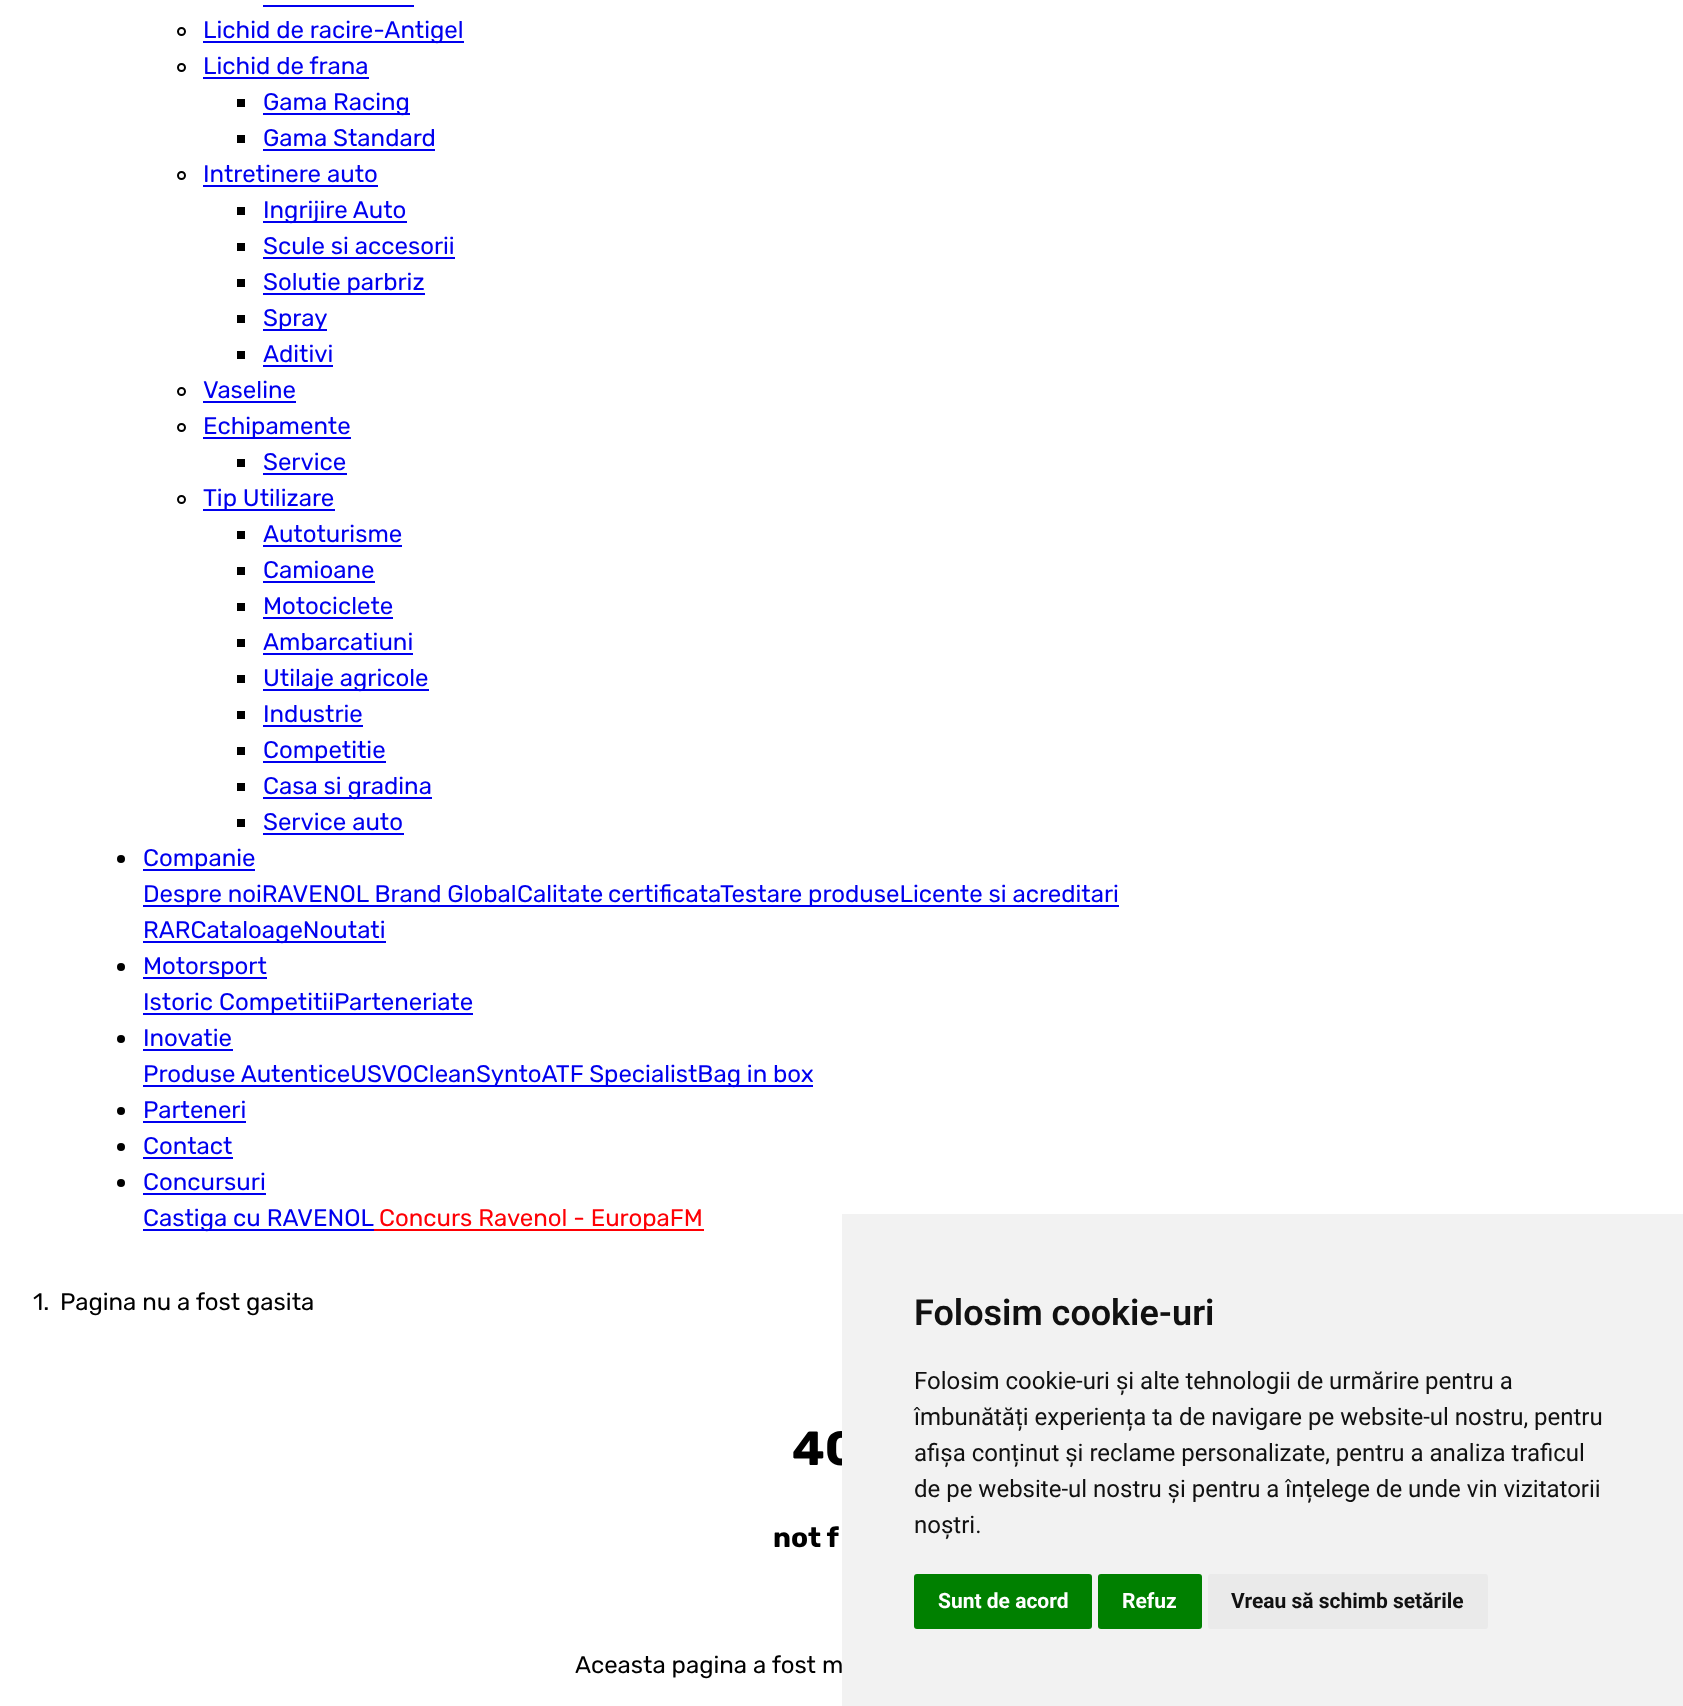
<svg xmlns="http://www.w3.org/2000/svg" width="1683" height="1706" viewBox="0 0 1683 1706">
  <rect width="100%" height="100%" fill="#ffffff"/>
  <rect x="263" y="5" width="151" height="2" fill="#0000ee"/>
  <circle cx="181.5" cy="31.5" r="3.5" fill="none" stroke="#000000" stroke-width="2"/>
  <rect x="203" y="41" width="261" height="2" fill="#0000ee"/>
  <text x="203" y="38" font-family="Rubik" font-size="24" fill="#0000ee">Lichid de racire-Antigel</text>
  <circle cx="181.5" cy="67.5" r="3.5" fill="none" stroke="#000000" stroke-width="2"/>
  <text x="203" y="74" font-family="Rubik" font-size="24" fill="#0000ee">Lichid de frana</text>
  <rect x="203" y="77" width="166" height="2" fill="#0000ee"/>
  <rect x="237" y="99" width="8" height="8" fill="#000000"/>
  <rect x="263" y="113" width="147" height="2" fill="#0000ee"/>
  <text x="263" y="110" font-family="Rubik" font-size="24" fill="#0000ee">Gama Racing</text>
  <rect x="237" y="135" width="8" height="8" fill="#000000"/>
  <text x="263" y="146" font-family="Rubik" font-size="24" fill="#0000ee">Gama Standard</text>
  <rect x="263" y="149" width="172" height="2" fill="#0000ee"/>
  <circle cx="181.5" cy="175.5" r="3.5" fill="none" stroke="#000000" stroke-width="2"/>
  <text x="203" y="182" font-family="Rubik" font-size="24" fill="#0000ee">Intretinere auto</text>
  <rect x="203" y="185" width="175" height="2" fill="#0000ee"/>
  <rect x="237" y="207" width="8" height="8" fill="#000000"/>
  <rect x="263" y="221" width="144" height="2" fill="#0000ee"/>
  <text x="263" y="218" font-family="Rubik" font-size="24" fill="#0000ee">Ingrijire Auto</text>
  <rect x="237" y="243" width="8" height="8" fill="#000000"/>
  <text x="263" y="254" font-family="Rubik" font-size="24" fill="#0000ee">Scule si accesorii</text>
  <rect x="263" y="257" width="192" height="2" fill="#0000ee"/>
  <rect x="237" y="279" width="8" height="8" fill="#000000"/>
  <rect x="263" y="293" width="162" height="2" fill="#0000ee"/>
  <text x="263" y="290" font-family="Rubik" font-size="24" fill="#0000ee">Solutie parbriz</text>
  <rect x="237" y="315" width="8" height="8" fill="#000000"/>
  <rect x="263" y="329" width="64" height="2" fill="#0000ee"/>
  <text x="263" y="326" font-family="Rubik" font-size="24" fill="#0000ee">Spray</text>
  <rect x="237" y="351" width="8" height="8" fill="#000000"/>
  <text x="263" y="362" font-family="Rubik" font-size="24" fill="#0000ee">Aditivi</text>
  <rect x="263" y="365" width="70" height="2" fill="#0000ee"/>
  <circle cx="181.5" cy="391.5" r="3.5" fill="none" stroke="#000000" stroke-width="2"/>
  <text x="203" y="398" font-family="Rubik" font-size="24" fill="#0000ee">Vaseline</text>
  <rect x="203" y="401" width="93" height="2" fill="#0000ee"/>
  <circle cx="181.5" cy="427.5" r="3.5" fill="none" stroke="#000000" stroke-width="2"/>
  <rect x="203" y="437" width="148" height="2" fill="#0000ee"/>
  <text x="203" y="434" font-family="Rubik" font-size="24" fill="#0000ee">Echipamente</text>
  <rect x="237" y="459" width="8" height="8" fill="#000000"/>
  <text x="263" y="470" font-family="Rubik" font-size="24" fill="#0000ee">Service</text>
  <rect x="263" y="473" width="84" height="2" fill="#0000ee"/>
  <circle cx="181.5" cy="499.5" r="3.5" fill="none" stroke="#000000" stroke-width="2"/>
  <rect x="203" y="509" width="132" height="2" fill="#0000ee"/>
  <text x="203" y="506" font-family="Rubik" font-size="24" fill="#0000ee">Tip Utilizare</text>
  <rect x="237" y="531" width="8" height="8" fill="#000000"/>
  <text x="263" y="542" font-family="Rubik" font-size="24" fill="#0000ee">Autoturisme</text>
  <rect x="263" y="545" width="139" height="2" fill="#0000ee"/>
  <rect x="237" y="567" width="8" height="8" fill="#000000"/>
  <text x="263" y="578" font-family="Rubik" font-size="24" fill="#0000ee">Camioane</text>
  <rect x="263" y="581" width="112" height="2" fill="#0000ee"/>
  <rect x="237" y="603" width="8" height="8" fill="#000000"/>
  <text x="263" y="614" font-family="Rubik" font-size="24" fill="#0000ee">Motociclete</text>
  <rect x="263" y="617" width="130" height="2" fill="#0000ee"/>
  <rect x="237" y="639" width="8" height="8" fill="#000000"/>
  <text x="263" y="650" font-family="Rubik" font-size="24" fill="#0000ee">Ambarcatiuni</text>
  <rect x="263" y="653" width="150" height="2" fill="#0000ee"/>
  <rect x="237" y="675" width="8" height="8" fill="#000000"/>
  <rect x="263" y="689" width="166" height="2" fill="#0000ee"/>
  <text x="263" y="686" font-family="Rubik" font-size="24" fill="#0000ee">Utilaje agricole</text>
  <rect x="237" y="711" width="8" height="8" fill="#000000"/>
  <text x="263" y="722" font-family="Rubik" font-size="24" fill="#0000ee">Industrie</text>
  <rect x="263" y="725" width="100" height="2" fill="#0000ee"/>
  <rect x="237" y="747" width="8" height="8" fill="#000000"/>
  <rect x="263" y="761" width="123" height="2" fill="#0000ee"/>
  <text x="263" y="758" font-family="Rubik" font-size="24" fill="#0000ee">Competitie</text>
  <rect x="237" y="783" width="8" height="8" fill="#000000"/>
  <rect x="263" y="797" width="169" height="2" fill="#0000ee"/>
  <text x="263" y="794" font-family="Rubik" font-size="24" fill="#0000ee">Casa si gradina</text>
  <rect x="237" y="819" width="8" height="8" fill="#000000"/>
  <text x="263" y="830" font-family="Rubik" font-size="24" fill="#0000ee">Service auto</text>
  <rect x="263" y="833" width="141" height="2" fill="#0000ee"/>
  <circle cx="121" cy="859" r="4" fill="#000000"/>
  <rect x="143" y="869" width="112" height="2" fill="#0000ee"/>
  <text x="143" y="866" font-family="Rubik" font-size="24" fill="#0000ee">Companie</text>
  <rect x="143" y="905" width="976" height="2" fill="#0000ee"/>
  <text x="143" y="902" font-family="Rubik" font-size="24" fill="#0000ee">Despre noiRAVENOL Brand Global</text>
  <text x="517" y="902" word-spacing="-1" font-family="Rubik" font-size="24" fill="#0000ee">Calitate certificata</text>
  <text x="720" y="902" font-family="Rubik" font-size="24" fill="#0000ee">Testare produseLicente si acreditari</text>
  <rect x="143" y="941" width="243" height="2" fill="#0000ee"/>
  <text x="143" y="938" font-family="Rubik" font-size="24" fill="#0000ee">RARCataloageNoutati</text>
  <circle cx="121" cy="967" r="4" fill="#000000"/>
  <rect x="143" y="977" width="124" height="2" fill="#0000ee"/>
  <text x="143" y="974" font-family="Rubik" font-size="24" fill="#0000ee">Motorsport</text>
  <rect x="143" y="1013" width="330" height="2" fill="#0000ee"/>
  <text x="143" y="1010" font-family="Rubik" font-size="24" fill="#0000ee">Istoric CompetitiiParteneriate</text>
  <circle cx="121" cy="1039" r="4" fill="#000000"/>
  <text x="143" y="1046" font-family="Rubik" font-size="24" fill="#0000ee">Inovatie</text>
  <rect x="143" y="1049" width="90" height="2" fill="#0000ee"/>
  <rect x="143" y="1085" width="670" height="2" fill="#0000ee"/>
  <text x="143" y="1082" font-family="Rubik" font-size="24" fill="#0000ee">Produse AutenticeUSVOCleanSyntoATF SpecialistBag in box</text>
  <circle cx="121" cy="1111" r="4" fill="#000000"/>
  <text x="143" y="1118" font-family="Rubik" font-size="24" fill="#0000ee">Parteneri</text>
  <rect x="143" y="1121" width="103" height="2" fill="#0000ee"/>
  <circle cx="121" cy="1147" r="4" fill="#000000"/>
  <text x="143" y="1154" font-family="Rubik" font-size="24" fill="#0000ee">Contact</text>
  <rect x="143" y="1157" width="90" height="2" fill="#0000ee"/>
  <circle cx="121" cy="1183" r="4" fill="#000000"/>
  <text x="143" y="1190" font-family="Rubik" font-size="24" fill="#0000ee">Concursuri</text>
  <rect x="143" y="1193" width="123" height="2" fill="#0000ee"/>
  <rect x="143" y="1229" width="231" height="2" fill="#0000ee"/>
  <text x="143" y="1226" font-family="Rubik" font-size="24" fill="#0000ee">Castiga cu RAVENOL</text>
  <rect x="374" y="1229" width="330" height="2" fill="#fe0005"/>
  <text x="379" y="1226" font-family="Rubik" font-size="24" fill="#fe0005">Concurs Ravenol - EuropaFM</text>
  <text x="33" y="1310" font-family="Rubik" font-size="24" fill="#000000">1.</text>
  <text x="60" y="1310" font-family="Rubik" font-size="24" fill="#000000">Pagina nu a fost gasita</text>
  <text x="792" y="1465" font-family="Rubik" font-size="48" font-weight="bold" fill="#000000">40</text>
  <text x="773" y="1547" font-family="Rubik" font-size="28" font-weight="bold" fill="#000000">not f</text>
  <text x="575" y="1673" font-family="Rubik" font-size="24" fill="#000000">Aceasta pagina a fost m</text>
  <rect x="842" y="1214" width="841" height="492" fill="#f2f2f2"/>
  <text x="914" y="1325" font-family="Roboto" font-size="36" font-weight="600" fill="#111111">Folosim cookie-uri</text>
  <text x="914" y="1389" font-family="Roboto" font-size="24" fill="#111111">Folosim cookie-uri și alte tehnologii de urmărire pentru a</text>
  <text x="914" y="1425" font-family="Roboto" font-size="24" fill="#111111">îmbunătăți experiența ta de navigare pe website-ul nostru, pentru</text>
  <text x="914" y="1461" font-family="Roboto" font-size="24" fill="#111111">afișa conținut și reclame personalizate, pentru a analiza traficul</text>
  <text x="914" y="1497" font-family="Roboto" font-size="24" fill="#111111">de pe website-ul nostru și pentru a înțelege de unde vin vizitatorii</text>
  <text x="914" y="1533" font-family="Roboto" font-size="24" fill="#111111">noștri.</text>
  <rect x="914" y="1574" width="178" height="55" rx="3" fill="#008000"/>
  <text x="938" y="1608" font-family="Roboto" font-size="21" font-weight="bold" fill="#ffffff">Sunt de acord</text>
  <rect x="1098" y="1574" width="104" height="55" rx="3" fill="#008000"/>
  <text x="1122" y="1608" font-family="Roboto" font-size="21" font-weight="bold" fill="#ffffff">Refuz</text>
  <rect x="1208" y="1574" width="280" height="55" rx="3" fill="#eaeaea"/>
  <text x="1231" y="1608" font-family="Roboto" font-size="21" font-weight="bold" fill="#111111">Vreau să schimb setările</text>
</svg>
